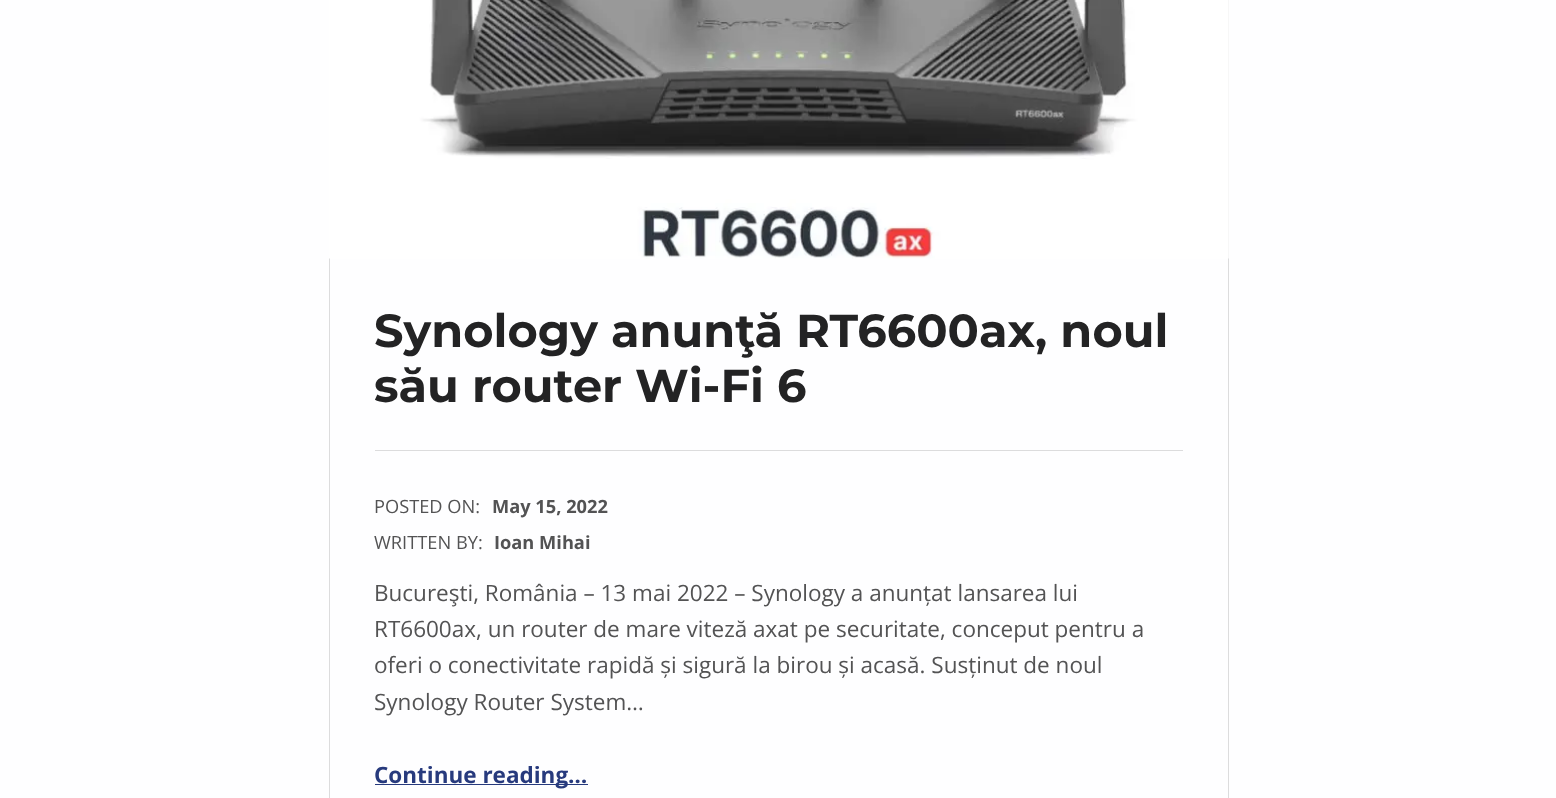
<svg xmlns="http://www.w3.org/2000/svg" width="1556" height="798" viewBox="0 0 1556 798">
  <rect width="100%" height="100%" fill="#fefeff"/>
  <path d="M1229-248V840L1228 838V-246Z" fill="#dcdcdd"/>
  <path d="M329 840V-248L330-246V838Z" fill="#dcdcdd"/>
  <image x="329" y="0" width="900" height="259" href="img1.png"/>
  <rect x="375" y="450" width="808" height="1" fill="#dcdcdd"/>
  <text x="374" y="347" font-family="Montserrat" font-size="46.25" font-weight="bold" fill="#232324">Synology anunţă RT6600ax, noul</text>
  <text x="374" y="402" font-family="Montserrat" font-size="46.25" font-weight="bold" fill="#232324">său router Wi-Fi 6</text>
  <text x="374" y="513" font-family="Open Sans" font-size="18.25" fill="#535354">POSTED ON:</text>
  <text x="492" y="513" font-family="Open Sans" font-size="18.25" font-weight="bold" fill="#535354">May 15, 2022</text>
  <text x="374" y="549" font-family="Open Sans" font-size="18.25" fill="#535354">WRITTEN BY:</text>
  <text x="494" y="549" font-family="Open Sans" font-size="18.25" font-weight="bold" fill="#535354">Ioan Mihai</text>
  <text x="374" y="601" font-family="Open Sans" font-size="22.5" fill="#535354">Bucureşti, România – 13 mai 2022 – Synology a anunțat lansarea lui</text>
  <text x="374" y="637" font-family="Open Sans" font-size="22.5" fill="#535354">RT6600ax, un router de mare viteză axat pe securitate, conceput pentru a</text>
  <text x="374" y="673" font-family="Open Sans" font-size="22.5" fill="#535354">oferi o conectivitate rapidă și sigură la birou și acasă. Susținut de noul</text>
  <text x="374" y="710" font-family="Open Sans" font-size="22.5" fill="#535354">Synology Router System…</text>
  <rect x="375" y="784" width="213" height="1" fill="#273a7d"/>
  <text x="374" y="783" font-family="Open Sans" font-size="22.5" font-weight="bold" fill="#273a7d">Continue reading…</text>
</svg>
